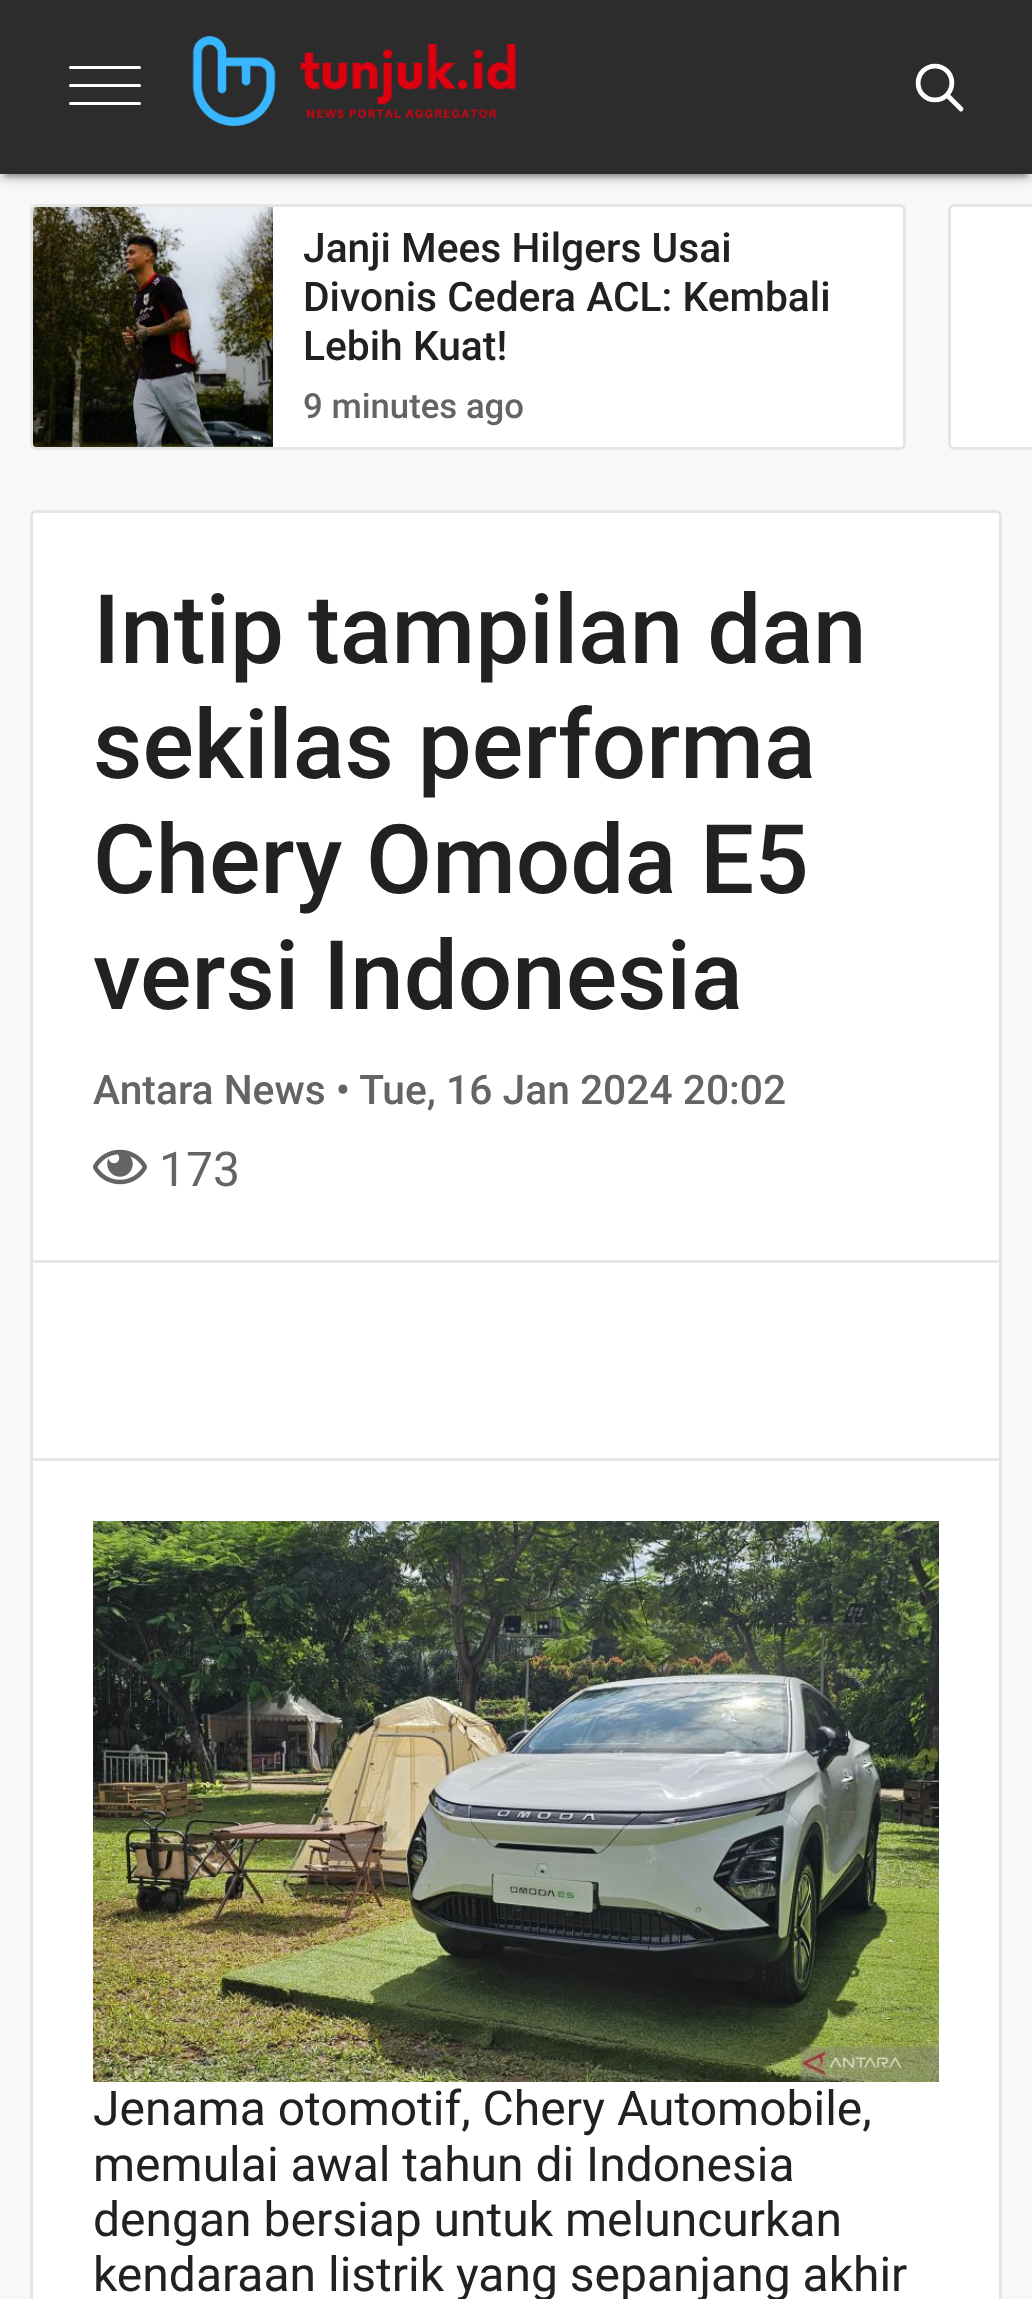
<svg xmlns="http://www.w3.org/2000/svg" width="1032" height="2299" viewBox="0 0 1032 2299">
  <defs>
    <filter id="blur1" x="-50%" y="-200%" width="200%" height="500%"><feGaussianBlur stdDeviation="7.5"/></filter>
    <filter id="blur2" x="-50%" y="-200%" width="200%" height="500%"><feGaussianBlur stdDeviation="3"/></filter>
    <filter id="blur3" x="-50%" y="-200%" width="200%" height="500%"><feGaussianBlur stdDeviation="1.5"/></filter>
  </defs>
  <rect width="100%" height="100%" fill="#f8f8f8"/>
  <rect x="0" y="3" width="1032" height="174" fill="#000000" fill-opacity="0.12" filter="url(#blur1)"/>
  <rect x="0" y="6" width="1032" height="174" fill="#000000" fill-opacity="0.14" filter="url(#blur2)"/>
  <rect x="6" y="15" width="1020" height="162" fill="#000000" fill-opacity="0.2" filter="url(#blur3)"/>
  <rect x="0" y="0" width="1032" height="174" fill="#2c2c2c"/>
  <rect x="69" y="84" width="72" height="3" rx="1.5" fill="#ffffff"/>
  <rect x="69" y="66" width="72" height="3" rx="1.5" fill="#ffffff"/>
  <rect x="69" y="102" width="72" height="3" rx="1.5" fill="#ffffff"/>
  <image x="192" y="36" width="84" height="90" href="img1.png"/>
  <image x="300" y="44" width="216" height="74" href="img2.png"/>
  <path d="M947 95C940.5 101.5 929.5 101.5 923 95C916.5 88.5 916.5 77.5 923 71C929.5 64.5 940.5 64.5 947 71C953.5 77.5 953.5 88 947 95M947 95L961 109M947 95L961 109" fill="none" stroke="#ffffff" stroke-width="4.8" stroke-linecap="round" stroke-linejoin="round"/>
  <rect x="31.5" y="205.5" width="873" height="243" rx="4.5" fill="#ffffff" stroke="#e5e5e5" stroke-width="3"/>
  <image x="33" y="207" width="240" height="240" href="img3.png"/>
  <text x="303" y="262" font-family="Roboto" font-size="40.75" font-weight="500" fill="#212121">Janji Mees Hilgers Usai</text>
  <text x="303" y="311" font-family="Roboto" font-size="40.75" font-weight="500" fill="#212121">Divonis Cedera ACL: Kembali</text>
  <text x="303" y="360" font-family="Roboto" font-size="40.75" font-weight="500" fill="#212121">Lebih Kuat!</text>
  <text x="303" y="418" font-family="Roboto" font-size="34.75" font-weight="500" fill="#646464">9 minutes ago</text>
  <path d="M954 204H1032V450H954C950.5 450 948 447.5 948 444V210C948 206.5 950.5 204 954 204Z" fill="#ffffff"/>
  <rect x="949.5" y="205.5" width="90" height="243" rx="4.5" fill="none" stroke="#e5e5e5" stroke-width="3"/>
  <rect x="31.5" y="511.5" width="969" height="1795" rx="4.5" fill="#ffffff" stroke="#e5e5e5" stroke-width="3"/>
  <text x="93" y="663" font-family="Roboto" font-size="96" font-weight="500" fill="#212121">Intip tampilan dan</text>
  <text x="93" y="778" font-family="Roboto" font-size="96" font-weight="500" fill="#212121">sekilas performa</text>
  <text x="93" y="893" font-family="Roboto" font-size="96" font-weight="500" fill="#212121">Chery Omoda E5</text>
  <text x="93" y="1009" font-family="Roboto" font-size="96" font-weight="500" fill="#212121">versi Indonesia</text>
  <text x="93" y="1104" font-family="Roboto" font-size="40.75" font-weight="500" fill="#646464">Antara News • Tue, 16 Jan 2024 20:02</text>
  <image x="93" y="1149" width="54" height="36" href="img4.png"/>
  <text x="159" y="1186" font-family="Roboto" font-size="48" fill="#646464">173</text>
  <rect x="33" y="1260" width="966" height="3" fill="#e6e6e6"/>
  <rect x="33" y="1458" width="966" height="3" fill="#e6e6e6"/>
  <image x="93" y="1521" width="846" height="561" href="img5.png"/>
  <text x="93" y="2125" font-family="Roboto" font-size="48" fill="#212121">Jenama otomotif, Chery Automobile,</text>
  <text x="93" y="2181" font-family="Roboto" font-size="48" fill="#212121">memulai awal tahun di Indonesia</text>
  <text x="93" y="2236" font-family="Roboto" font-size="48" fill="#212121">dengan bersiap untuk meluncurkan</text>
  <text x="93" y="2291" font-family="Roboto" font-size="48" fill="#212121">kendaraan listrik yang sepanjang akhir</text>
</svg>
